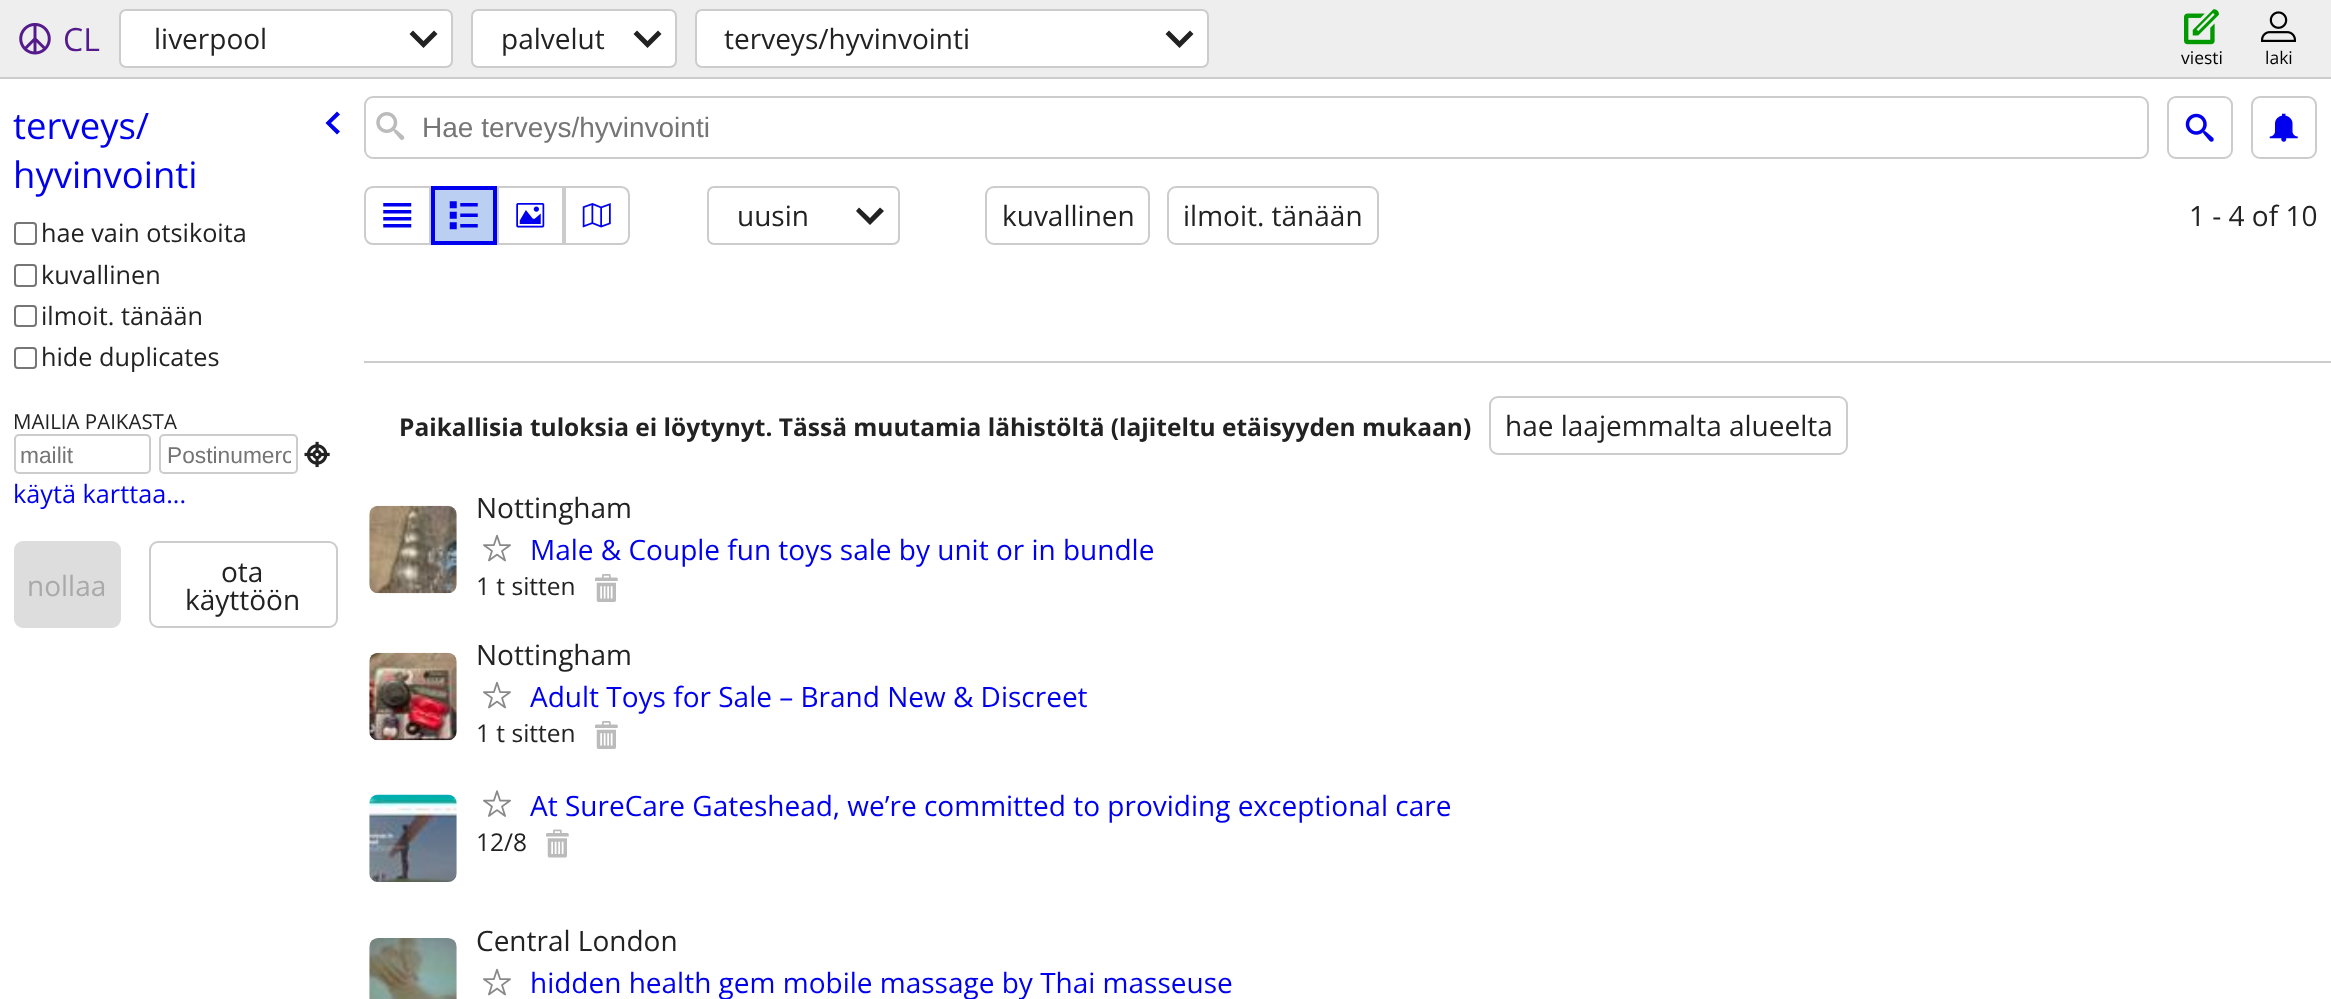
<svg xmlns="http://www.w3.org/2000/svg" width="2331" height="999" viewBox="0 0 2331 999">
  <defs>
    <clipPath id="clip1"><rect x="166" y="441" width="125" height="26"/></clipPath>
  </defs>
  <rect width="100%" height="100%" fill="#ffffff"/>
  <rect x="0" y="0" width="2331" height="77" fill="#eeeeee"/>
  <rect x="0" y="77" width="2331" height="2" fill="#cccccc"/>
  <image x="19" y="23" width="32" height="32" href="img1.png"/>
  <text x="63" y="51" font-family="Open Sans" font-size="32" fill="#551a8b">CL</text>
  <rect x="120" y="10" width="332" height="57" rx="6" fill="#ffffff" stroke="#cccccc" stroke-width="2"/>
  <text x="154" y="49" font-family="Open Sans" font-size="28" fill="#222222">liverpool</text>
  <path d="M437.5 34L434 30.5L423.5 41L413 30.5L409.5 34L423.5 48Z" fill="#222222"/>
  <rect x="472" y="10" width="204" height="57" rx="6" fill="#ffffff" stroke="#cccccc" stroke-width="2"/>
  <text x="501" y="49" font-family="Open Sans" font-size="28" fill="#222222">palvelut</text>
  <path d="M661.5 34L658 30.5L647.5 41L637 30.5L633.5 34L647.5 48Z" fill="#222222"/>
  <rect x="696" y="10" width="512" height="57" rx="6" fill="#ffffff" stroke="#cccccc" stroke-width="2"/>
  <text x="724" y="49" font-family="Open Sans" font-size="28" fill="#222222">terveys/hyvinvointi</text>
  <path d="M1193.5 34L1190 30.5L1179.5 41L1169 30.5L1165.5 34L1179.5 48Z" fill="#222222"/>
  <image x="2184" y="9" width="35" height="36" href="img2.png"/>
  <text x="2181" y="64" font-family="Open Sans" font-size="17.5" fill="#000000">viesti</text>
  <image x="2261" y="11" width="35" height="31" href="img3.png"/>
  <text x="2265" y="64" font-family="Open Sans" font-size="17.5" fill="#000000">laki</text>
  <text x="13" y="139" font-family="Open Sans" font-size="36.5" fill="#0000ee">terveys/</text>
  <text x="13" y="188" font-family="Open Sans" font-size="36.5" fill="#0000ee">hyvinvointi</text>
  <path d="M337 134.5L340 131.5L331 123L340 114.5L337 111.5L325.5 123Z" fill="#0000ee"/>
  <rect x="15" y="223" width="21" height="21" rx="3" fill="none" stroke="#767676" stroke-width="2"/>
  <text x="41" y="242" font-family="Open Sans" font-size="25.25" fill="#222222">hae vain otsikoita</text>
  <rect x="15" y="265" width="21" height="21" rx="3" fill="none" stroke="#767676" stroke-width="2"/>
  <text x="41" y="284" font-family="Open Sans" font-size="25.25" fill="#222222">kuvallinen</text>
  <rect x="15" y="306" width="21" height="20" rx="3" fill="none" stroke="#767676" stroke-width="2"/>
  <text x="41" y="325" font-family="Open Sans" font-size="25.25" fill="#222222">ilmoit. tänään</text>
  <rect x="15" y="348" width="21" height="20" rx="3" fill="none" stroke="#767676" stroke-width="2"/>
  <text x="41" y="366" font-family="Open Sans" font-size="25.25" fill="#222222">hide duplicates</text>
  <text x="13" y="429" font-family="Open Sans" font-size="20.5" fill="#222222">MAILIA PAIKASTA</text>
  <rect x="15" y="435" width="135" height="38" rx="4" fill="none" stroke="#cccccc" stroke-width="2"/>
  <text x="20" y="463" font-family="Liberation Sans" font-size="22.75" fill="#757575">mailit</text>
  <rect x="160" y="435" width="137" height="38" rx="4" fill="none" stroke="#cccccc" stroke-width="2"/>
  <g clip-path="url(#clip1)">
    <text x="167" y="463" font-family="Liberation Sans" font-size="22.75" fill="#757575">Postinumero</text>
  </g>
  <image x="304" y="441" width="26" height="27" href="img4.png"/>
  <text x="13" y="503" font-family="Open Sans" font-size="25.25" fill="#0000ee">käytä karttaa...</text>
  <rect x="15" y="542" width="105" height="85" rx="8" fill="#dddddd" stroke="#dddddd" stroke-width="2"/>
  <text x="27" y="596" font-family="Open Sans" font-size="28" fill="#a9a9a9">nollaa</text>
  <rect x="150" y="542" width="187" height="85" rx="8" fill="none" stroke="#cccccc" stroke-width="2"/>
  <text x="221" y="582" font-family="Open Sans" font-size="28" fill="#222222">ota</text>
  <text x="185" y="610" font-family="Open Sans" font-size="28" fill="#222222">käyttöön</text>
  <rect x="365" y="97" width="1783" height="61" rx="8" fill="none" stroke="#cccccc" stroke-width="2"/>
  <image x="376" y="112" width="29" height="28" href="img5.png"/>
  <text x="422" y="137" font-family="Liberation Sans" font-size="28" fill="#757575">Hae terveys/hyvinvointi</text>
  <rect x="2168" y="97" width="64" height="61" rx="8" fill="none" stroke="#cccccc" stroke-width="2"/>
  <image x="2185" y="113" width="29" height="29" href="img6.png"/>
  <rect x="2252" y="97" width="64" height="61" rx="8" fill="none" stroke="#cccccc" stroke-width="2"/>
  <image x="2269" y="113" width="29" height="29" href="img7.png"/>
  <path d="M373 187H430V244H373C368.5 244 365 240.5 365 236V195C365 190.5 368.5 187 373 187Z" fill="none" stroke="#cccccc" stroke-width="2"/>
  <image x="383" y="203" width="29" height="25" href="img8.png"/>
  <rect x="433" y="188" width="62" height="55" fill="#bacff2" stroke="#0000ee" stroke-width="4"/>
  <image x="449" y="201" width="29" height="29" href="img9.png"/>
  <rect x="498" y="187" width="65" height="57" fill="none" stroke="#cccccc" stroke-width="2"/>
  <image x="516" y="203" width="29" height="25" href="img10.png"/>
  <path d="M565 187H621C625.5 187 629 190.5 629 195V236C629 240.5 625.5 244 621 244H565Z" fill="none" stroke="#cccccc" stroke-width="2"/>
  <image x="582" y="203" width="29" height="25" href="img11.png"/>
  <rect x="708" y="187" width="191" height="57" rx="6" fill="none" stroke="#cccccc" stroke-width="2"/>
  <text x="737" y="226" font-family="Open Sans" font-size="28" fill="#222222">uusin</text>
  <path d="M884 211L880 207.5L870 218L859 207.5L856 211L870 225Z" fill="#222222"/>
  <rect x="986" y="187" width="163" height="57" rx="8" fill="none" stroke="#cccccc" stroke-width="2"/>
  <text x="1002" y="226" font-family="Open Sans" font-size="28" fill="#222222">kuvallinen</text>
  <rect x="1168" y="187" width="210" height="57" rx="8" fill="none" stroke="#cccccc" stroke-width="2"/>
  <text x="1183" y="226" font-family="Open Sans" font-size="28" fill="#222222">ilmoit. tänään</text>
  <text x="2189" y="226" font-family="Open Sans" font-size="28" fill="#222222">1 - 4 of 10</text>
  <rect x="364" y="361" width="1967" height="2" fill="#cccccc"/>
  <text x="399" y="436" font-family="Open Sans" font-size="24.5" font-weight="bold" fill="#222222">Paikallisia tuloksia ei löytynyt. Tässä muutamia lähistöltä (lajiteltu etäisyyden mukaan)</text>
  <rect x="1490" y="397" width="357" height="57" rx="8" fill="none" stroke="#cccccc" stroke-width="2"/>
  <text x="1505" y="436" font-family="Open Sans" font-size="28" fill="#222222">hae laajemmalta alueelta</text>
  <image x="369" y="505" width="88" height="89" href="img12.png"/>
  <text x="476" y="518" font-family="Open Sans" font-size="28" fill="#222222">Nottingham</text>
  <image x="483" y="534" width="28" height="28" href="img13.png"/>
  <text x="530" y="560" font-family="Open Sans" font-size="28" fill="#0000ee">Male &amp; Couple fun toys sale by unit or in bundle</text>
  <text x="476" y="595" font-family="Open Sans" font-size="24.5" fill="#222222">1 t sitten</text>
  <image x="595" y="574" width="23" height="28" href="img14.png"/>
  <image x="369" y="652" width="88" height="89" href="img15.png"/>
  <text x="476" y="665" font-family="Open Sans" font-size="28" fill="#222222">Nottingham</text>
  <image x="483" y="681" width="28" height="28" href="img13.png"/>
  <text x="530" y="707" font-family="Open Sans" font-size="28" fill="#0000ee">Adult Toys for Sale – Brand New &amp; Discreet</text>
  <text x="476" y="742" font-family="Open Sans" font-size="24.5" fill="#222222">1 t sitten</text>
  <image x="595" y="721" width="23" height="28" href="img14.png"/>
  <image x="369" y="794" width="88" height="88" href="img16.png"/>
  <image x="483" y="790" width="28" height="27" href="img17.png"/>
  <text x="530" y="816" font-family="Open Sans" font-size="28" fill="#0000ee">At SureCare Gateshead, we’re committed to providing exceptional care</text>
  <text x="476" y="851" font-family="Open Sans" font-size="24.5" fill="#222222">12/8</text>
  <image x="546" y="829" width="23" height="29" href="img18.png"/>
  <image x="369" y="938" width="88" height="61" href="img19.png"/>
  <text x="476" y="951" font-family="Open Sans" font-size="28" fill="#222222">Central London</text>
  <image x="483" y="968" width="28" height="28" href="img13.png"/>
  <text x="530" y="993" font-family="Open Sans" font-size="28" fill="#0000ee">hidden health gem mobile massage by Thai masseuse</text>
</svg>
